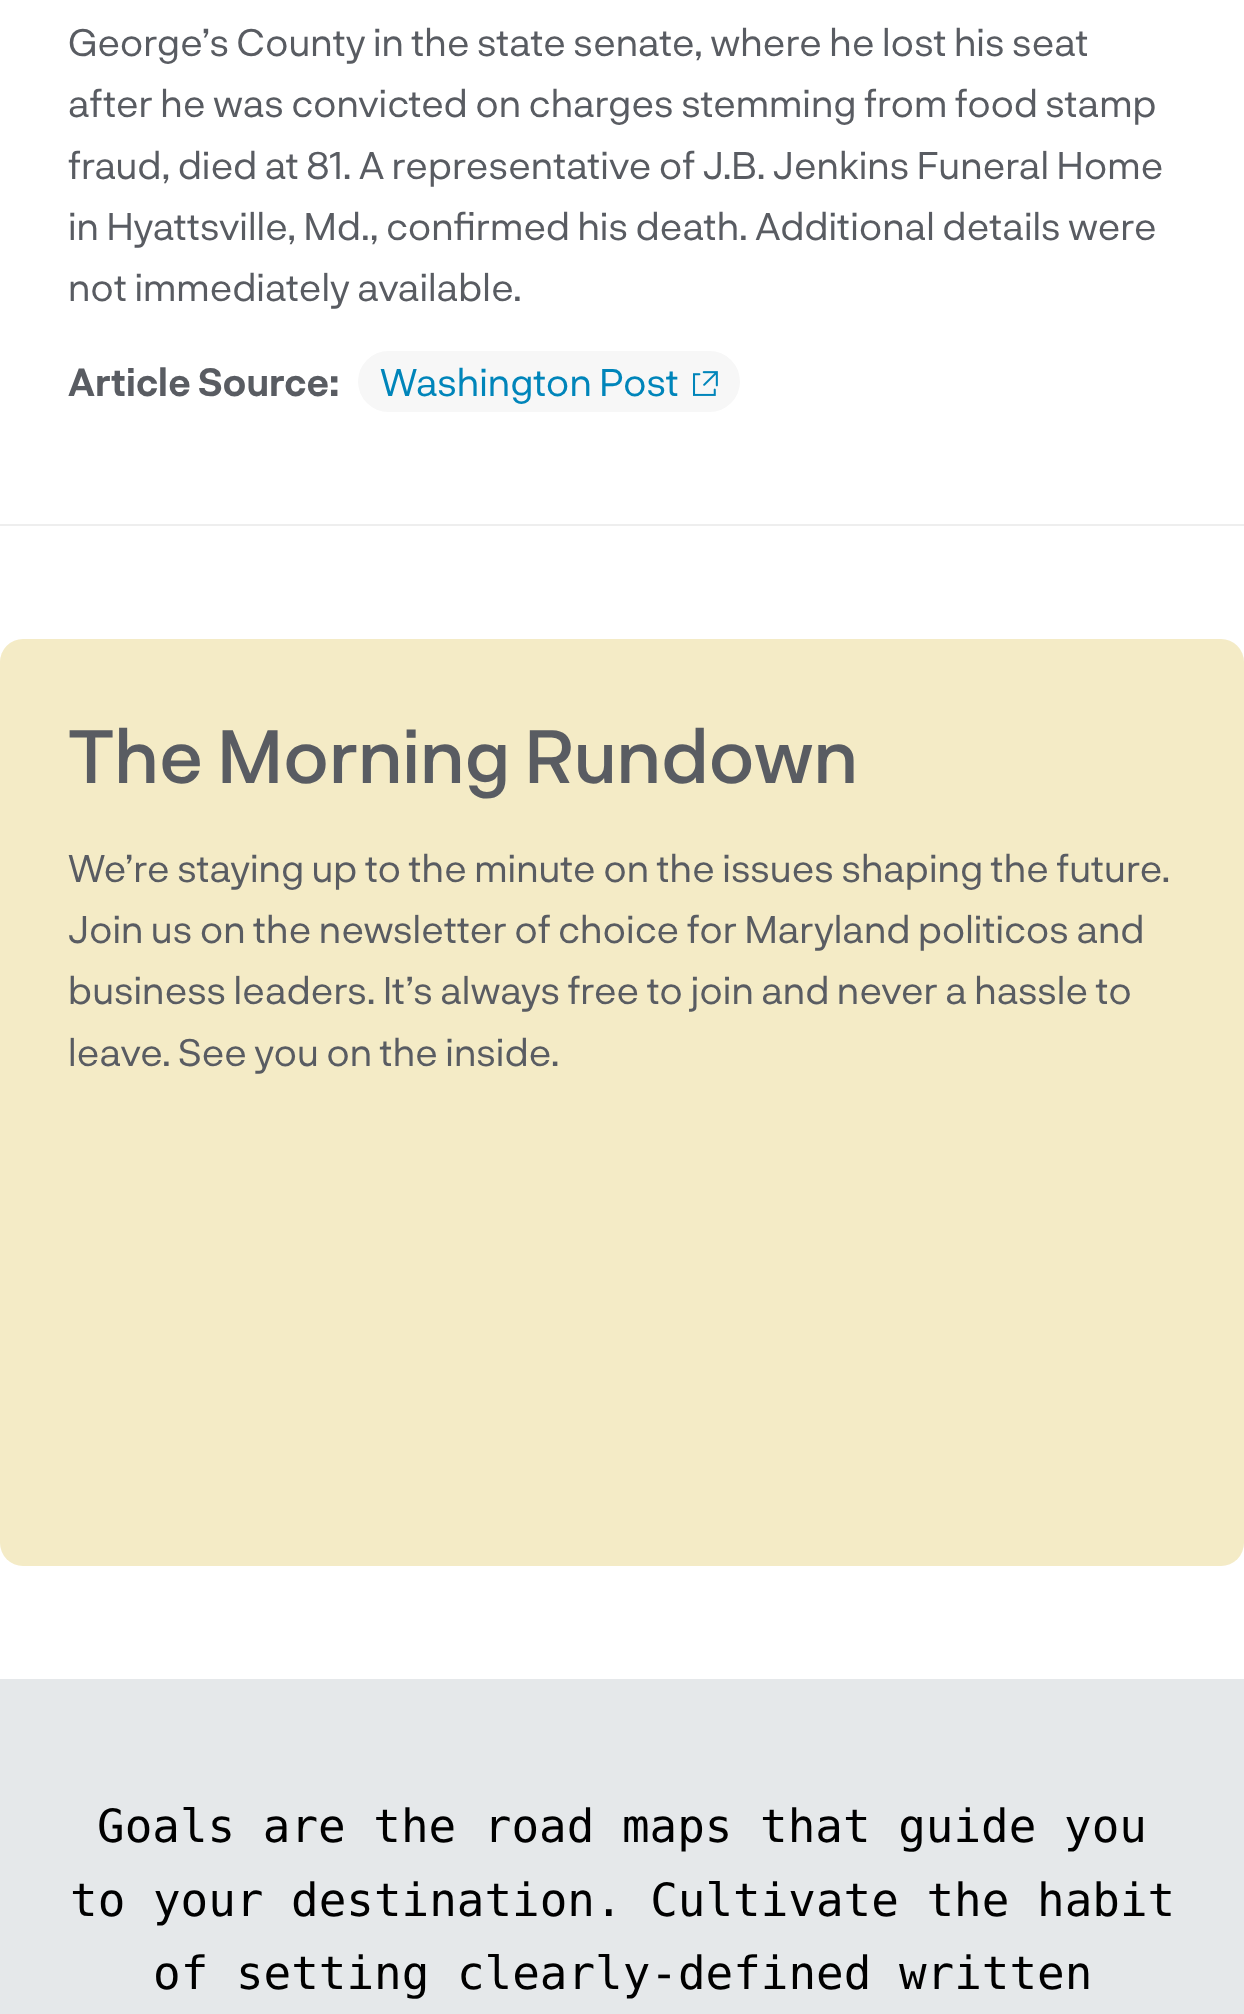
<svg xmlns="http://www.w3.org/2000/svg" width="1244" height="2014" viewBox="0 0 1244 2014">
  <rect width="100%" height="100%" fill="#ffffff"/>
  <text x="68" y="56" font-family="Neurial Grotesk" font-size="38.25" fill="#595c62">George’s County in the state senate, where he lost his seat</text>
  <text x="68" y="117" font-family="Neurial Grotesk" font-size="38.25" fill="#595c62">after he was convicted on charges stemming from food stamp</text>
  <text x="68" y="179" font-family="Neurial Grotesk" font-size="38.25" fill="#595c62">fraud, died at 81. A representative of J.B. Jenkins Funeral Home</text>
  <text x="68" y="240" font-family="Neurial Grotesk" font-size="38.25" fill="#595c62">in Hyattsville, Md., confirmed his death. Additional details were</text>
  <text x="68" y="301" font-family="Neurial Grotesk" font-size="38.25" fill="#595c62">not immediately available.</text>
  <text x="68" y="396" font-family="Neurial Grotesk" font-size="38.25" font-weight="bold" fill="#595c62">Article Source:</text>
  <rect x="358" y="351" width="382" height="61" rx="30.5" fill="#f7f7f7"/>
  <text x="380" y="396" font-family="Neurial Grotesk" font-size="38.25" fill="#0085ba">Washington Post</text>
  <image x="693" y="371" width="25" height="25" href="img1.png"/>
  <rect x="0" y="524" width="1244" height="2" fill="#eeeeee"/>
  <rect x="0" y="639" width="1244" height="927" rx="23" fill="#f4ebc6"/>
  <text x="68" y="783" font-family="Neurial Grotesk" font-size="74.25" font-weight="500" fill="#595c62">The Morning Rundown</text>
  <text x="68" y="882" font-family="Neurial Grotesk" font-size="38.25" fill="#595c62">We’re staying up to the minute on the issues shaping the future.</text>
  <text x="68" y="943" font-family="Neurial Grotesk" font-size="38.25" fill="#595c62">Join us on the newsletter of choice for Maryland politicos and</text>
  <text x="68" y="1004" font-family="Neurial Grotesk" font-size="38.25" fill="#595c62">business leaders. It’s always free to join and never a hassle to</text>
  <text x="68" y="1066" font-family="Neurial Grotesk" font-size="38.25" fill="#595c62">leave. See you on the inside.</text>
  <rect x="0" y="1679" width="1244" height="335" fill="#e5e8ea"/>
  <text x="97" y="1842" font-family="DejaVu Sans Mono" font-size="45.9" fill="#000000">Goals are the road maps that guide you</text>
  <text x="70" y="1916" font-family="DejaVu Sans Mono" font-size="45.9" fill="#000000">to your destination. Cultivate the habit</text>
  <text x="153" y="1989" font-family="DejaVu Sans Mono" font-size="45.9" fill="#000000">of setting clearly-defined written</text>
</svg>
